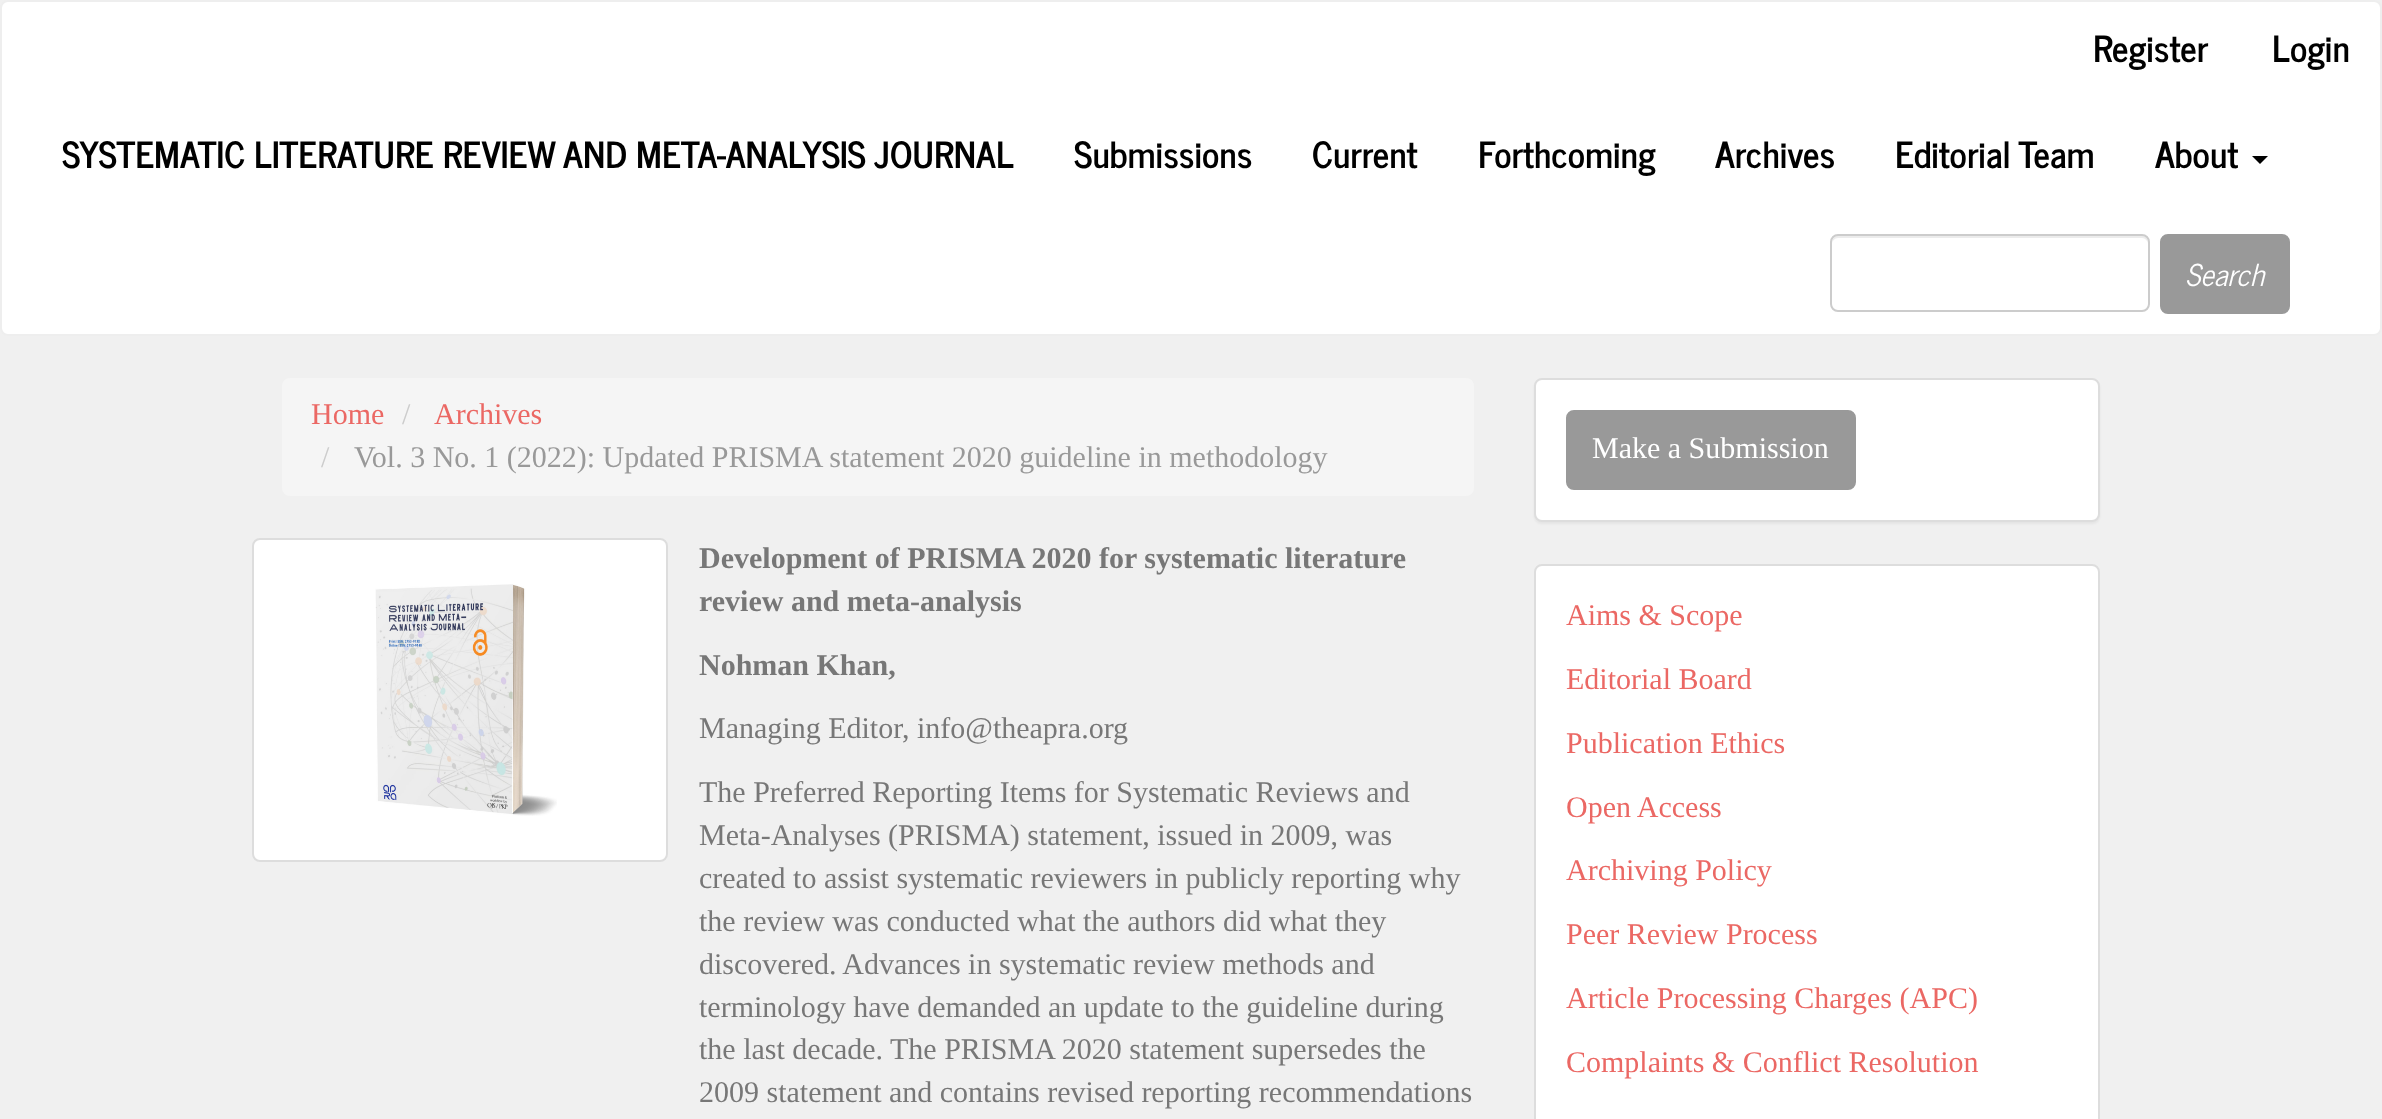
<svg xmlns="http://www.w3.org/2000/svg" width="2382" height="1119" viewBox="0 0 2382 1119">
  <defs>
    <filter id="blur1" x="-50%" y="-200%" width="200%" height="500%"><feGaussianBlur stdDeviation="1"/></filter>
  </defs>
  <rect width="100%" height="100%" fill="#f0f0f0"/>
  <rect x="1" y="1" width="2380" height="334" rx="7" fill="#ffffff" stroke="#eeeeee" stroke-width="2"/>
  <text x="2093" y="62" font-family="News Cycle" font-size="36" font-weight="bold" fill="#000000">Register</text>
  <text x="2272" y="62" font-family="News Cycle" font-size="36" font-weight="bold" fill="#000000">Login</text>
  <text x="62" y="168" font-family="News Cycle" font-size="36" font-weight="bold" fill="#000000">SYSTEMATIC LITERATURE REVIEW AND META-ANALYSIS JOURNAL</text>
  <text x="1074" y="168" font-family="News Cycle" font-size="36" font-weight="bold" fill="#000000">Submissions</text>
  <text x="1312" y="168" font-family="News Cycle" font-size="36" font-weight="bold" fill="#000000">Current</text>
  <text x="1478" y="168" font-family="News Cycle" font-size="36" font-weight="bold" fill="#000000">Forthcoming</text>
  <text x="1715" y="168" font-family="News Cycle" font-size="36" font-weight="bold" fill="#000000">Archives</text>
  <text x="1895" y="168" font-family="News Cycle" font-size="36" font-weight="bold" fill="#000000">Editorial Team</text>
  <text x="2155" y="168" font-family="News Cycle" font-size="36" font-weight="bold" fill="#000000">About</text>
  <path d="M2252 156H2268L2260 164Z" fill="#000000"/>
  <path d="M1838 238H2142C2145 238 2148 241 2148 244C2148 240 2147 236 2142 236H1837C1833 237 1832 241 1832 244C1832 241 1835 238 1838 238Z" fill="#ececec"/>
  <rect x="1831" y="235" width="318" height="76" rx="7" fill="none" stroke="#cccccc" stroke-width="2"/>
  <rect x="2161" y="235" width="128" height="78" rx="7" fill="#999999" stroke="#999999" stroke-width="2"/>
  <text x="2185" y="286" font-family="News Cycle" font-size="30" font-style="italic" fill="#ffffff">Search</text>
  <rect x="282" y="378" width="1192" height="118" rx="8" fill="#f5f5f5"/>
  <text x="311" y="424" font-family="Liberation Serif" font-size="30" fill="#eb6864">Home</text>
  <text x="402" y="424" font-family="Liberation Serif" font-size="30" fill="#cccccc">/</text>
  <text x="434" y="424" font-family="Liberation Serif" font-size="30" fill="#eb6864">Archives</text>
  <text x="321" y="467" font-family="Liberation Serif" font-size="30" fill="#cccccc">/</text>
  <text x="354" y="467" font-family="Liberation Serif" font-size="30" fill="#999999">Vol. 3 No. 1 (2022): Updated PRISMA statement 2020 guideline in methodology</text>
  <rect x="253" y="539" width="414" height="322" rx="7" fill="#ffffff" stroke="#dddddd" stroke-width="2"/>
  <image x="375" y="584" width="182" height="232" href="img1.png"/>
  <text x="699" y="568" font-family="Liberation Serif" font-size="30" font-weight="bold" fill="#777777">Development of PRISMA 2020 for systematic literature</text>
  <text x="699" y="611" font-family="Liberation Serif" font-size="30" font-weight="bold" fill="#777777">review and meta-analysis</text>
  <text x="699" y="675" font-family="Liberation Serif" font-size="30" font-weight="bold" fill="#777777">Nohman Khan,</text>
  <text x="699" y="738" font-family="Liberation Serif" font-size="30" fill="#777777">Managing Editor, info@theapra.org</text>
  <text x="699" y="802" font-family="Liberation Serif" font-size="30" fill="#777777">The Preferred Reporting Items for Systematic Reviews and</text>
  <text x="699" y="845" font-family="Liberation Serif" font-size="30" fill="#777777">Meta-Analyses (PRISMA) statement, issued in 2009, was</text>
  <text x="699" y="888" font-family="Liberation Serif" font-size="30" fill="#777777">created to assist systematic reviewers in publicly reporting why</text>
  <text x="699" y="931" font-family="Liberation Serif" font-size="30" fill="#777777">the review was conducted what the authors did what they</text>
  <text x="699" y="974" font-family="Liberation Serif" font-size="30" fill="#777777">discovered. Advances in systematic review methods and</text>
  <text x="699" y="1017" font-family="Liberation Serif" font-size="30" fill="#777777">terminology have demanded an update to the guideline during</text>
  <text x="699" y="1059" font-family="Liberation Serif" font-size="30" fill="#777777">the last decade. The PRISMA 2020 statement supersedes the</text>
  <text x="699" y="1102" font-family="Liberation Serif" font-size="30" fill="#777777">2009 statement and contains revised reporting recommendations</text>
  <rect x="1534" y="380" width="566" height="144" rx="8" fill="#000000" fill-opacity="0.05" filter="url(#blur1)"/>
  <rect x="1535" y="379" width="564" height="142" rx="7" fill="#ffffff" stroke="#dddddd" stroke-width="2"/>
  <rect x="1567" y="411" width="288" height="78" rx="7" fill="#999999" stroke="#999999" stroke-width="2"/>
  <text x="1592" y="458" font-family="Liberation Serif" font-size="30" fill="#ffffff">Make a Submission</text>
  <rect x="1535" y="565" width="564" height="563" rx="7" fill="#ffffff" stroke="#dddddd" stroke-width="2"/>
  <text x="1566" y="625" font-family="Liberation Serif" font-size="30" fill="#eb6864">Aims &amp; Scope</text>
  <text x="1566" y="689" font-family="Liberation Serif" font-size="30" fill="#eb6864">Editorial Board</text>
  <text x="1566" y="753" font-family="Liberation Serif" font-size="30" fill="#eb6864">Publication Ethics</text>
  <text x="1566" y="817" font-family="Liberation Serif" font-size="30" fill="#eb6864">Open Access</text>
  <text x="1566" y="880" font-family="Liberation Serif" font-size="30" fill="#eb6864">Archiving Policy</text>
  <text x="1566" y="944" font-family="Liberation Serif" font-size="30" fill="#eb6864">Peer Review Process</text>
  <text x="1566" y="1008" font-family="Liberation Serif" font-size="30" fill="#eb6864">Article Processing Charges (APC)</text>
  <text x="1566" y="1072" font-family="Liberation Serif" font-size="30" fill="#eb6864">Complaints &amp; Conflict Resolution</text>
</svg>
